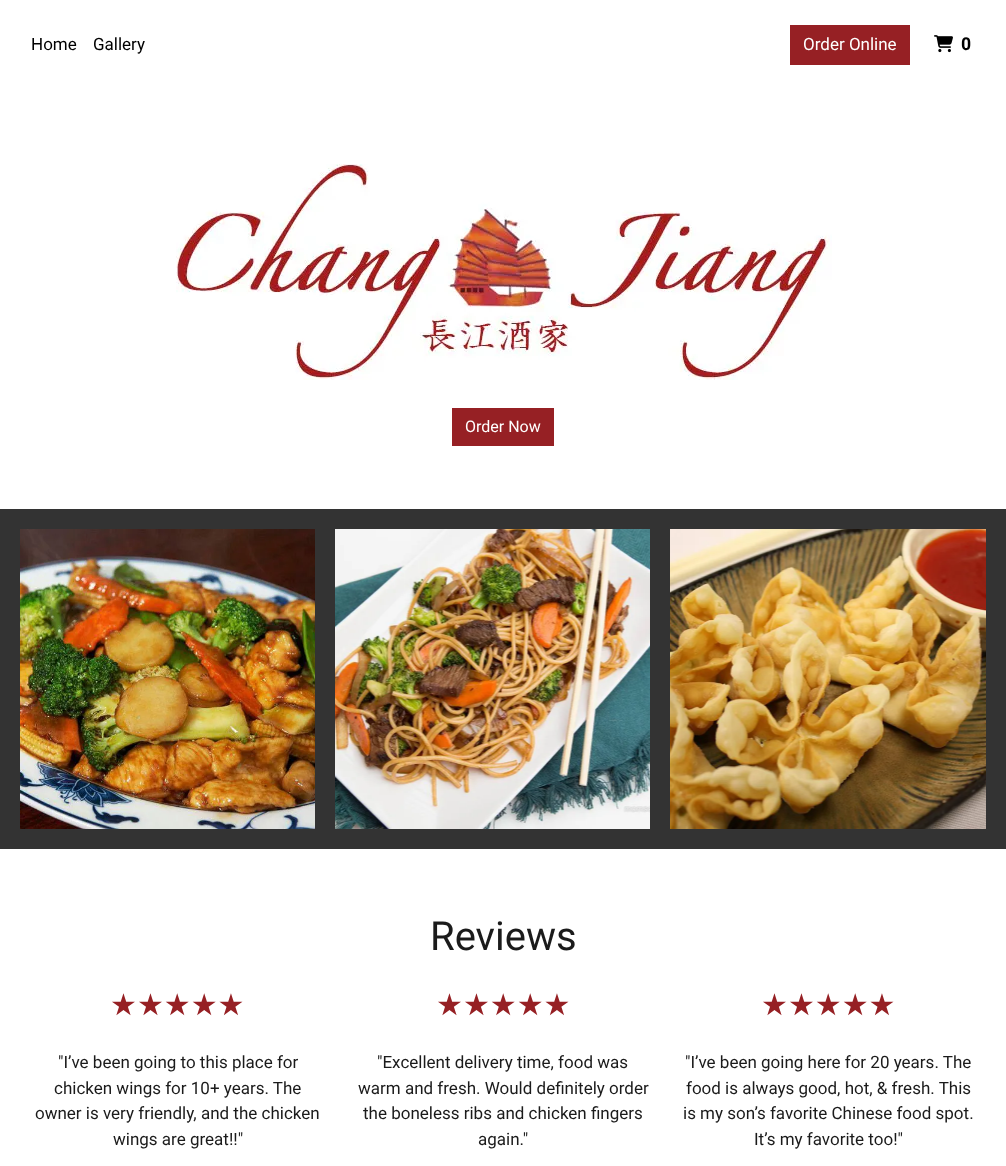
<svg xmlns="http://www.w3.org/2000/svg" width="1006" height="1166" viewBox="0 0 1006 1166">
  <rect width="100%" height="100%" fill="#333333"/>
  <rect x="0" y="0" width="1006" height="509" fill="#ffffff"/>
  <text x="31" y="50" font-family="Roboto" font-size="17" fill="#000000">Home</text>
  <text x="93" y="50" font-family="Roboto" font-size="17" fill="#000000">Gallery</text>
  <rect x="790" y="25" width="120" height="40" fill="#962024"/>
  <text x="803" y="50" font-family="Roboto" font-size="17" fill="#ffffff">Order Online</text>
  <image x="934" y="35" width="19" height="18" href="img1.png"/>
  <text x="961" y="50" font-family="Roboto" font-size="17" font-weight="bold" fill="#000000">0</text>
  <image x="176" y="164" width="656" height="216" href="img2.png"/>
  <rect x="452" y="408" width="102" height="38" fill="#962024"/>
  <text x="465" y="432" font-family="Roboto" font-size="16" fill="#ffffff">Order Now</text>
  <image x="20" y="529" width="295" height="300" href="img3.png"/>
  <image x="335" y="529" width="315" height="300" href="img4.png"/>
  <image x="670" y="529" width="316" height="300" href="img5.png"/>
  <rect x="0" y="849" width="1006" height="317" fill="#ffffff"/>
  <text x="430" y="950" font-family="Roboto" font-size="40" fill="#1b1b1b">Reviews</text>
  <text x="110" y="1015" font-family="DejaVu Sans" font-size="30" fill="#962024">★★★★★</text>
  <text x="58" y="1068" font-family="Roboto" font-size="17" fill="#1b1b1b">"I’ve been going to this place for</text>
  <text x="54" y="1094" font-family="Roboto" font-size="17" fill="#1b1b1b">chicken wings for 10+ years. The</text>
  <text x="35" y="1119" font-family="Roboto" font-size="17" fill="#1b1b1b">owner is very friendly, and the chicken</text>
  <text x="113" y="1145" font-family="Roboto" font-size="17" fill="#1b1b1b">wings are great!!"</text>
  <text x="436" y="1015" font-family="DejaVu Sans" font-size="30" fill="#962024">★★★★★</text>
  <text x="377" y="1068" font-family="Roboto" font-size="17" fill="#1b1b1b">"Excellent delivery time, food was</text>
  <text x="358" y="1094" font-family="Roboto" font-size="17" fill="#1b1b1b">warm and fresh. Would definitely order</text>
  <text x="363" y="1119" font-family="Roboto" font-size="17" fill="#1b1b1b">the boneless ribs and chicken fingers</text>
  <text x="478" y="1145" font-family="Roboto" font-size="17" fill="#1b1b1b">again."</text>
  <text x="761" y="1015" font-family="DejaVu Sans" font-size="30" fill="#962024">★★★★★</text>
  <text x="685" y="1068" font-family="Roboto" font-size="17" fill="#1b1b1b">"I’ve been going here for 20 years. The</text>
  <text x="686" y="1094" font-family="Roboto" font-size="17" fill="#1b1b1b">food is always good, hot, &amp; fresh. This</text>
  <text x="683" y="1119" font-family="Roboto" font-size="17" fill="#1b1b1b">is my son’s favorite Chinese food spot.</text>
  <text x="754" y="1145" font-family="Roboto" font-size="17" fill="#1b1b1b">It’s my favorite too!"</text>
</svg>
